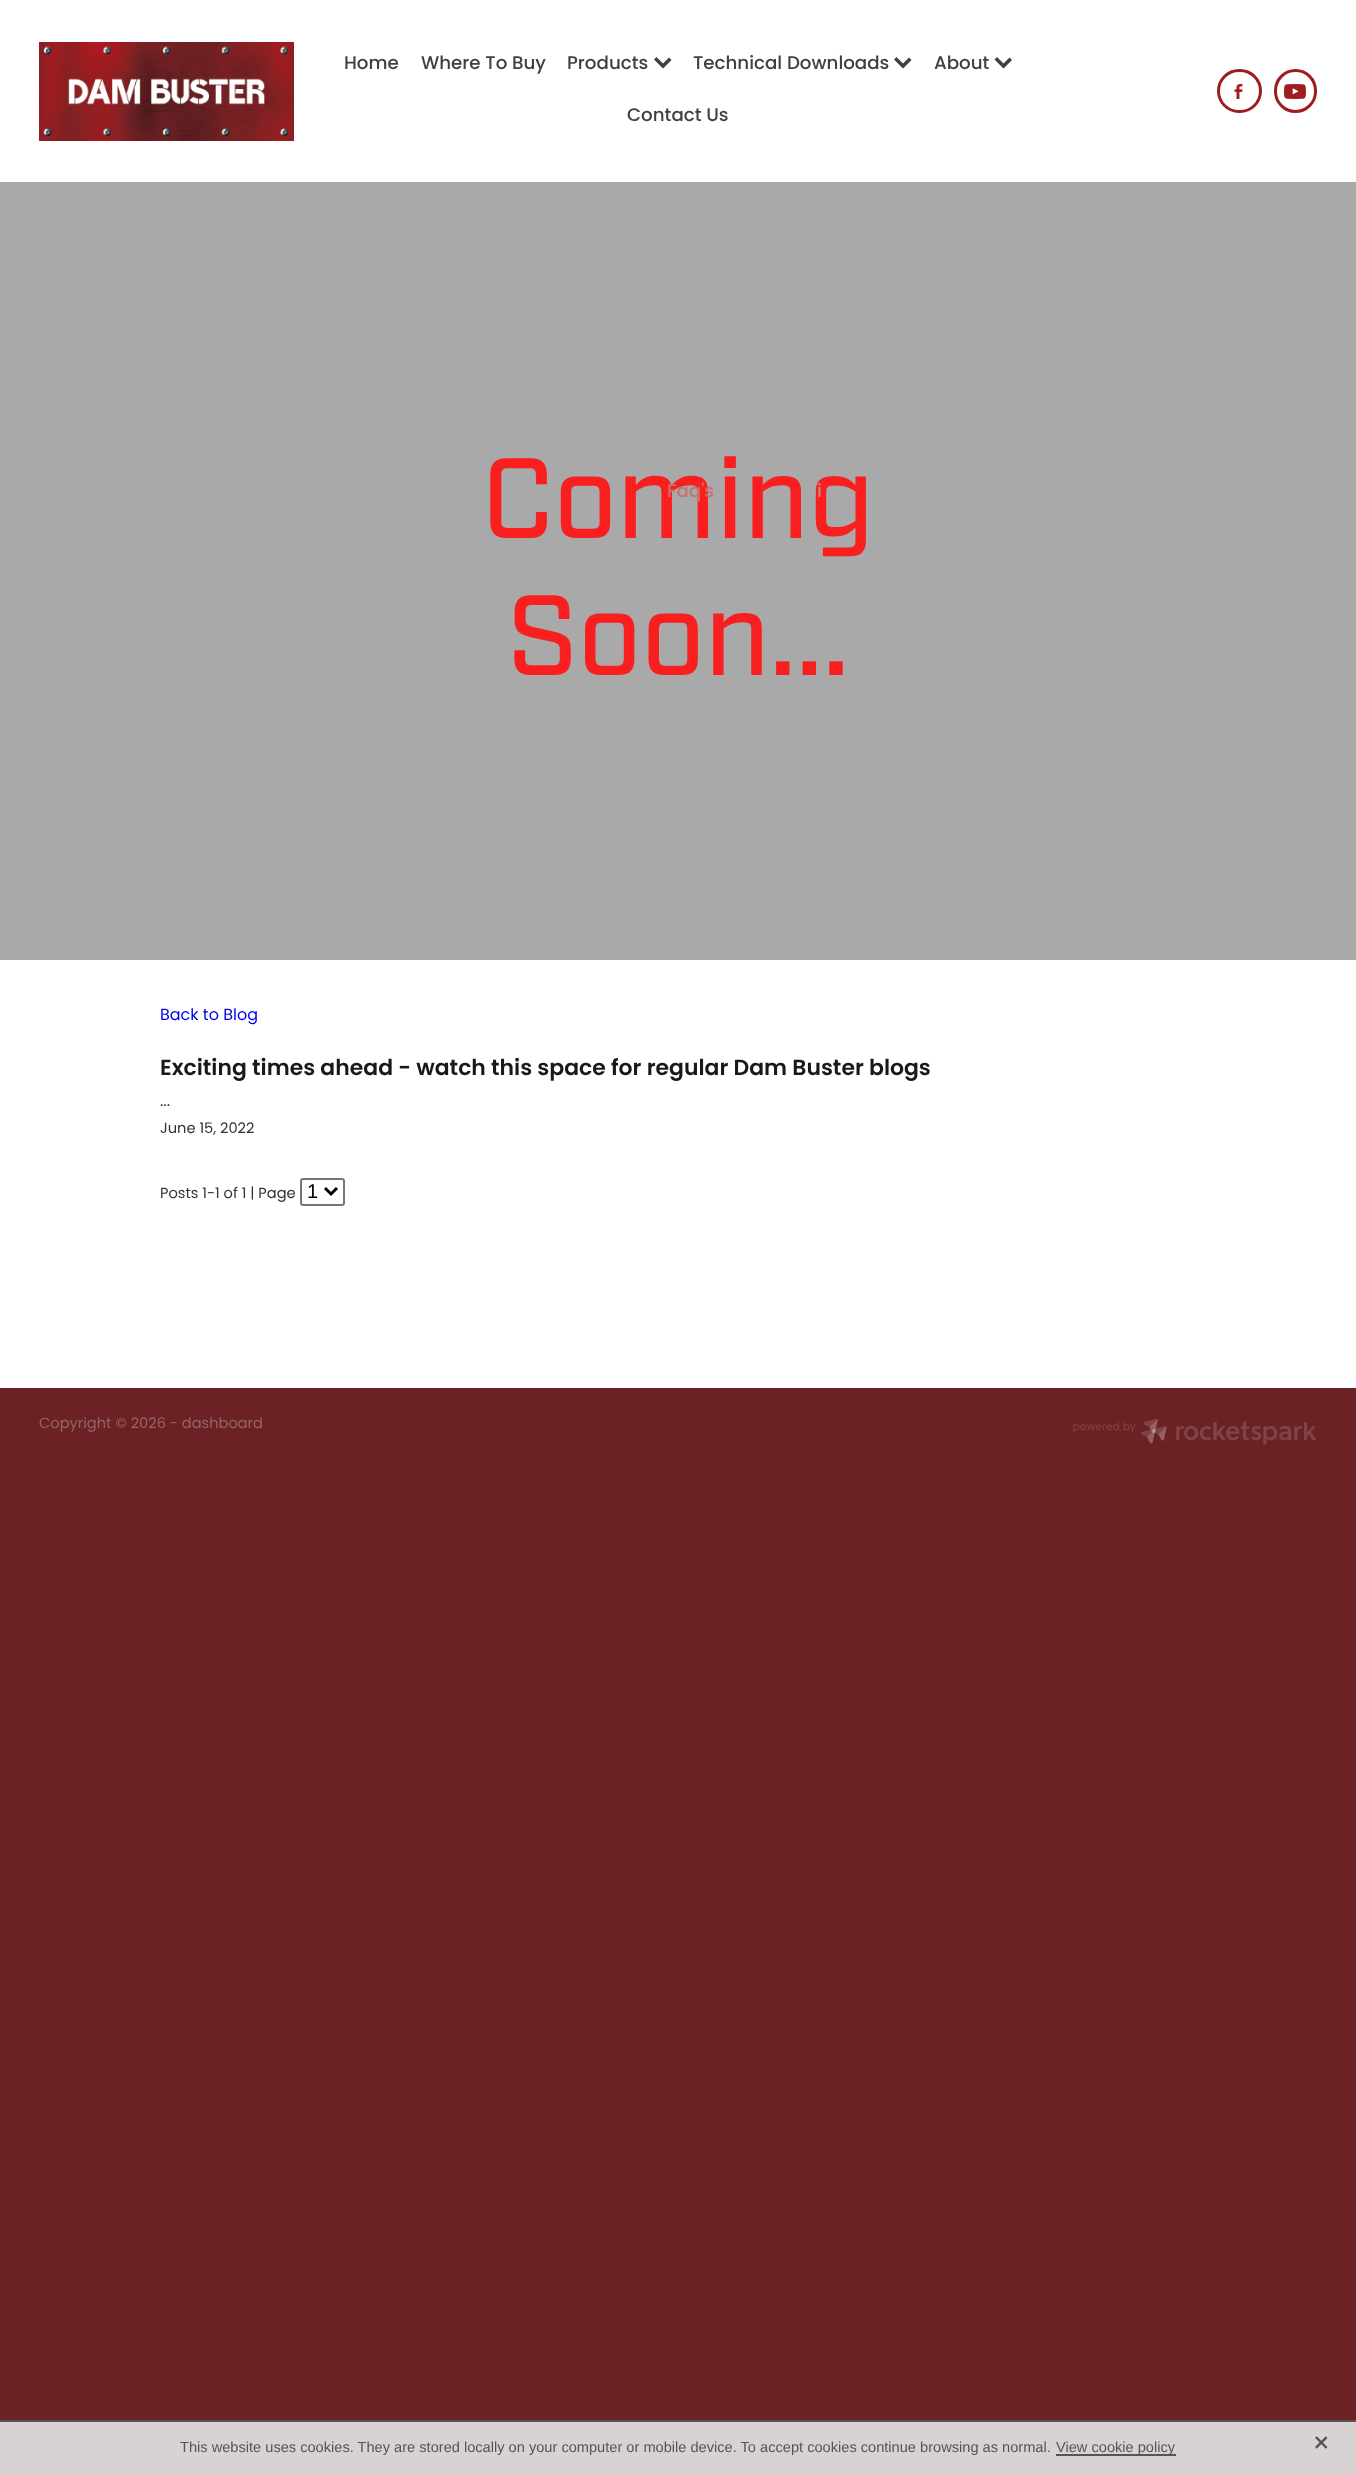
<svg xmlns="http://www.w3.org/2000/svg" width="1356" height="2475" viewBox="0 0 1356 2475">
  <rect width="100%" height="100%" fill="#ffffff"/>
  <image x="39" y="42" width="255" height="99" href="img1.png"/>
  <text x="344" y="69" font-family="Poppins" font-size="18.25" font-weight="500" fill="#404041">Home</text>
  <text x="421" y="69" font-family="Poppins" font-size="18.25" font-weight="500" fill="#404041">Where To Buy</text>
  <text x="567" y="69" font-family="Poppins" font-size="18.25" font-weight="500" fill="#404041">Products</text>
  <path d="M671.5 60L663 68.5L654 59.5L656.5 57L663 63.5L669 57.5Z" fill="#404041" fill-rule="evenodd"/>
  <rect x="0" y="182" width="1356" height="778" fill="#a9a9a9"/>
  <text x="482" y="538" font-family="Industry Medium" font-size="114" font-weight="500" fill="#f91f1f">Coming</text>
  <text x="667" y="497" font-family="Poppins" font-size="18.25" font-weight="500" fill="#c87373">Faq's</text>
  <text x="693" y="69" font-family="Poppins" font-size="18.25" font-weight="500" fill="#404041">Technical Downloads</text>
  <path d="M911.5 60L903 68.5L894 59.5L896.5 57L903 63.5L909 57.5Z" fill="#404041" fill-rule="evenodd"/>
  <text x="817" y="497" font-family="Poppins" font-size="18.25" font-weight="500" fill="#b98d8d">i</text>
  <text x="934" y="69" font-family="Poppins" font-size="18.25" font-weight="500" fill="#404041">About</text>
  <path d="M1012 60L1003.5 68.5L994.5 59.5L997 57L1003.5 63.5L1009.5 57.5Z" fill="#404041" fill-rule="evenodd"/>
  <text x="627" y="121" font-family="Poppins" font-size="18.25" font-weight="500" fill="#404041">Contact Us</text>
  <rect x="1218.5" y="70.5" width="42" height="41" rx="20.5" fill="none" stroke="#9e1d21" stroke-width="3"/>
  <image x="1234" y="84" width="9" height="15" href="img2.png"/>
  <rect x="1275.5" y="70.5" width="40" height="41" rx="20" fill="none" stroke="#9e1d21" stroke-width="3"/>
  <image x="1284" y="84" width="22" height="15" href="img3.png"/>
  <text x="507" y="675" font-family="Industry Medium" font-size="114" font-weight="500" fill="#f91f1f">Soon...</text>
  <text x="160" y="1020" font-family="Poppins" font-size="16" fill="#0000ee">Back to Blog</text>
  <text x="160" y="1075" font-family="Poppins" font-size="21.95" font-weight="600" fill="#191919">Exciting times ahead - watch this space for regular Dam Buster blogs</text>
  <text x="160" y="1106" font-family="Poppins" font-size="16" fill="#333333">...</text>
  <text x="160" y="1133" font-family="Poppins" font-size="14.62" fill="#333333">June 15, 2022</text>
  <text x="160" y="1198" font-family="Poppins" font-size="14.62" fill="#333333">Posts 1-1 of 1 | Page</text>
  <rect x="301" y="1179" width="43" height="26" rx="2" fill="none" stroke="#767676" stroke-width="2"/>
  <path d="M325 1188L331 1194L337 1188" fill="none" stroke="#000000" stroke-width="3"/>
  <text x="307" y="1198" font-family="Liberation Sans" font-size="20" fill="#000000">1</text>
  <path d="M-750 1388V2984H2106V1388H1356V1484H0V1388Z" fill="#6a2224"/>
  <rect x="0" y="1388" width="1356" height="96" fill="#6a2224"/>
  <text x="39" y="1428" font-family="Poppins" font-size="14.62" fill="#976466">Copyright © 2026 - dashboard</text>
  <image x="1073" y="1419" width="243" height="26" href="img4.png"/>
  <rect x="0" y="2422" width="1356" height="53" fill="#d9d2d2"/>
  <rect x="0" y="2420" width="1356" height="2" fill="#575454"/>
  <text x="180" y="2452" font-family="Liberation Sans" font-size="14.62" fill="#555555">This website uses cookies. They are stored locally on your computer or mobile device. To accept cookies continue browsing as normal.</text>
  <rect x="1056" y="2454" width="120" height="2" fill="#555555"/>
  <text x="1056" y="2452" font-family="Liberation Sans" font-size="14.62" fill="#555555">View cookie policy</text>
  <image x="1315" y="2436" width="13" height="13" href="img5.png"/>
</svg>
